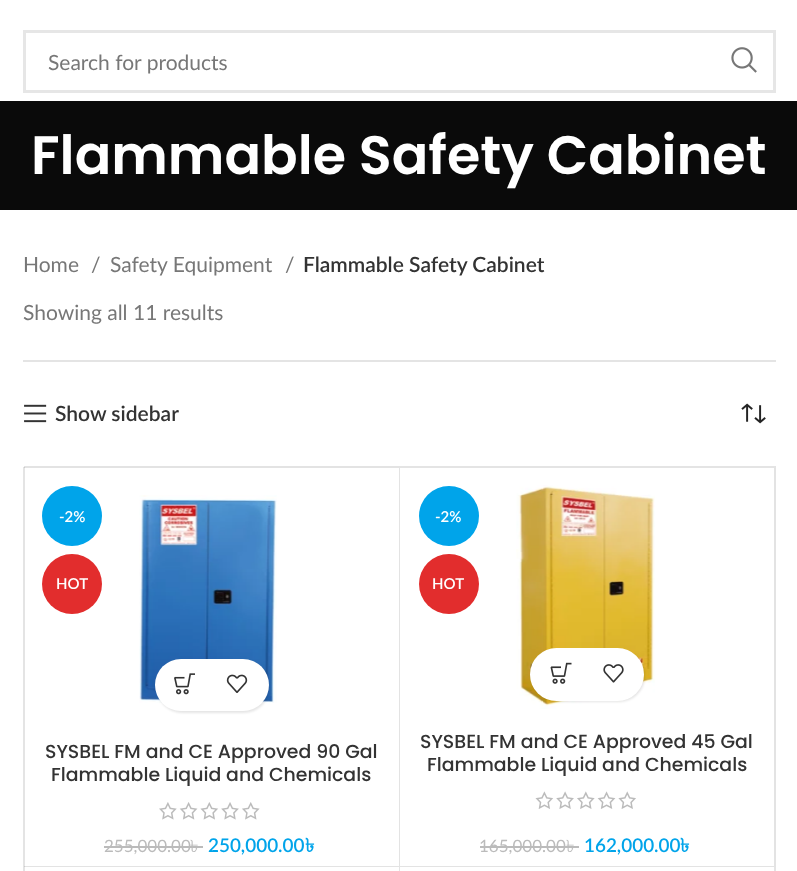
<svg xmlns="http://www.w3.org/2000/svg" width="797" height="871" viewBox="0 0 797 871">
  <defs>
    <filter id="blur1" x="-50%" y="-200%" width="200%" height="500%"><feGaussianBlur stdDeviation="1"/></filter>
  </defs>
  <rect width="100%" height="100%" fill="#ffffff"/>
  <rect x="24.5" y="31.5" width="750" height="60" fill="none" stroke="#e6e6e6" stroke-width="3"/>
  <text x="48" y="70" font-family="Lato" font-size="21" fill="#777777">Search for products</text>
  <image x="731" y="47" width="26" height="26" href="img1.png"/>
  <rect x="0" y="101" width="797" height="109" fill="#0a0a0a"/>
  <text x="31" y="174" font-family="Poppins" font-size="54" font-weight="600" fill="#ffffff">Flammable Safety Cabinet</text>
  <rect x="23" y="360" width="753" height="2" fill="#e4e4e4"/>
  <text x="23" y="272" font-family="Lato" font-size="21" fill="#777777">Home</text>
  <text x="91" y="272" font-family="Lato" font-size="21" fill="#777777">/</text>
  <text x="110" y="272" font-family="Lato" font-size="21" fill="#777777">Safety Equipment</text>
  <text x="285" y="272" font-family="Lato" font-size="21" fill="#777777">/</text>
  <text x="303" y="272" font-family="Lato" font-size="21" font-weight="600" fill="#333333">Flammable Safety Cabinet</text>
  <text x="23" y="320" font-family="Lato" font-size="21" fill="#777777">Showing all 11 results</text>
  <image x="24" y="404" width="23" height="19" href="img2.png"/>
  <text x="55" y="421" font-family="Lato" font-size="21" font-weight="600" fill="#333333">Show sidebar</text>
  <image x="741" y="403" width="25" height="21" href="img3.png"/>
  <rect x="23" y="467" width="2" height="404" fill="#e4e4e4"/>
  <path d="M24 466H400L399 468H24Z" fill="#000000" fill-opacity="0.11"/>
  <path d="M400 466V867L399 866V468Z" fill="#000000" fill-opacity="0.11"/>
  <path d="M400 867H24V866H399Z" fill="#000000" fill-opacity="0.11"/>
  <circle cx="72" cy="516" r="30" fill="#00a4ea"/>
  <text x="59" y="522" font-family="Lato" font-size="15" font-weight="600" fill="#ffffff">-2%</text>
  <circle cx="72" cy="584" r="30" fill="#e22d2d"/>
  <text x="56" y="589" font-family="Lato" font-size="15" font-weight="600" fill="#ffffff">HOT</text>
  <image x="139" y="495" width="138" height="208" href="img4.png"/>
  <rect x="156" y="660" width="114" height="53" rx="26.5" fill="#000000" fill-opacity="0.1" filter="url(#blur1)"/>
  <rect x="155" y="659" width="114" height="52" rx="26" fill="#ffffff"/>
  <image x="174" y="673" width="21" height="22" href="img5.png"/>
  <image x="226" y="674" width="22" height="19" href="img6.png"/>
  <text x="45" y="758" font-family="Poppins" font-size="18.9" font-weight="500" fill="#333333">SYSBEL FM and CE Approved 90 Gal</text>
  <text x="51" y="781" font-family="Poppins" font-size="18.9" font-weight="500" fill="#333333">Flammable Liquid and Chemicals</text>
  <image x="159" y="802" width="101" height="18" href="img7.png"/>
  <text x="104" y="852" font-family="Lato" font-size="17" fill="#bbbbbb">255,000.00</text>
  <rect x="104" y="846" width="87" height="2" fill="#bbbbbb"/>
  <rect x="191" y="846" width="12" height="2" fill="#bbbbbb"/>
  <text x="190" y="852" font-family="Lohit Bengali" font-size="17" fill="#bbbbbb">৳</text>
  <text x="208" y="852" font-family="Lato" font-size="18.9" font-weight="600" fill="#00a4ea">250,000.00</text>
  <text x="305" y="852" font-family="Lohit Bengali" font-size="18.9" font-weight="bold" fill="#00a4ea">৳</text>
  <path d="M400 466H776L774 468H400Z" fill="#e4e4e4"/>
  <path d="M776 466V867L774 866V468Z" fill="#000000" fill-opacity="0.11"/>
  <path d="M776 867H400V866H774Z" fill="#000000" fill-opacity="0.11"/>
  <circle cx="449" cy="516" r="30" fill="#00a4ea"/>
  <text x="435" y="522" font-family="Lato" font-size="15" font-weight="600" fill="#ffffff">-2%</text>
  <circle cx="449" cy="584" r="30" fill="#e22d2d"/>
  <text x="432" y="589" font-family="Lato" font-size="15" font-weight="600" fill="#ffffff">HOT</text>
  <image x="516" y="485" width="139" height="224" href="img8.png"/>
  <rect x="531" y="650" width="114" height="52" rx="26" fill="#000000" fill-opacity="0.1" filter="url(#blur1)"/>
  <rect x="530" y="648" width="114" height="53" rx="26.5" fill="#ffffff"/>
  <image x="550" y="662" width="22" height="22" href="img9.png"/>
  <image x="603" y="664" width="21" height="19" href="img10.png"/>
  <text x="420" y="748" font-family="Poppins" font-size="18.9" font-weight="500" fill="#333333">SYSBEL FM and CE Approved 45 Gal</text>
  <text x="427" y="771" font-family="Poppins" font-size="18.9" font-weight="500" fill="#333333">Flammable Liquid and Chemicals</text>
  <image x="535" y="791" width="101" height="18" href="img11.png"/>
  <text x="479" y="852" font-family="Lato" font-size="17" fill="#bbbbbb">165,000.00</text>
  <rect x="480" y="846" width="86" height="2" fill="#bbbbbb"/>
  <rect x="566" y="846" width="13" height="2" fill="#bbbbbb"/>
  <text x="566" y="852" font-family="Lohit Bengali" font-size="17" fill="#bbbbbb">৳</text>
  <text x="584" y="852" font-family="Lato" font-size="18.9" font-weight="600" fill="#00a4ea">162,000.00</text>
  <text x="680" y="852" font-family="Lohit Bengali" font-size="18.9" font-weight="bold" fill="#00a4ea">৳</text>
  <path d="M400 867V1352L399 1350V867Z" fill="#e4e4e4"/>
  <path d="M776 867V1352L774 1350V867Z" fill="#e4e4e4"/>
</svg>
